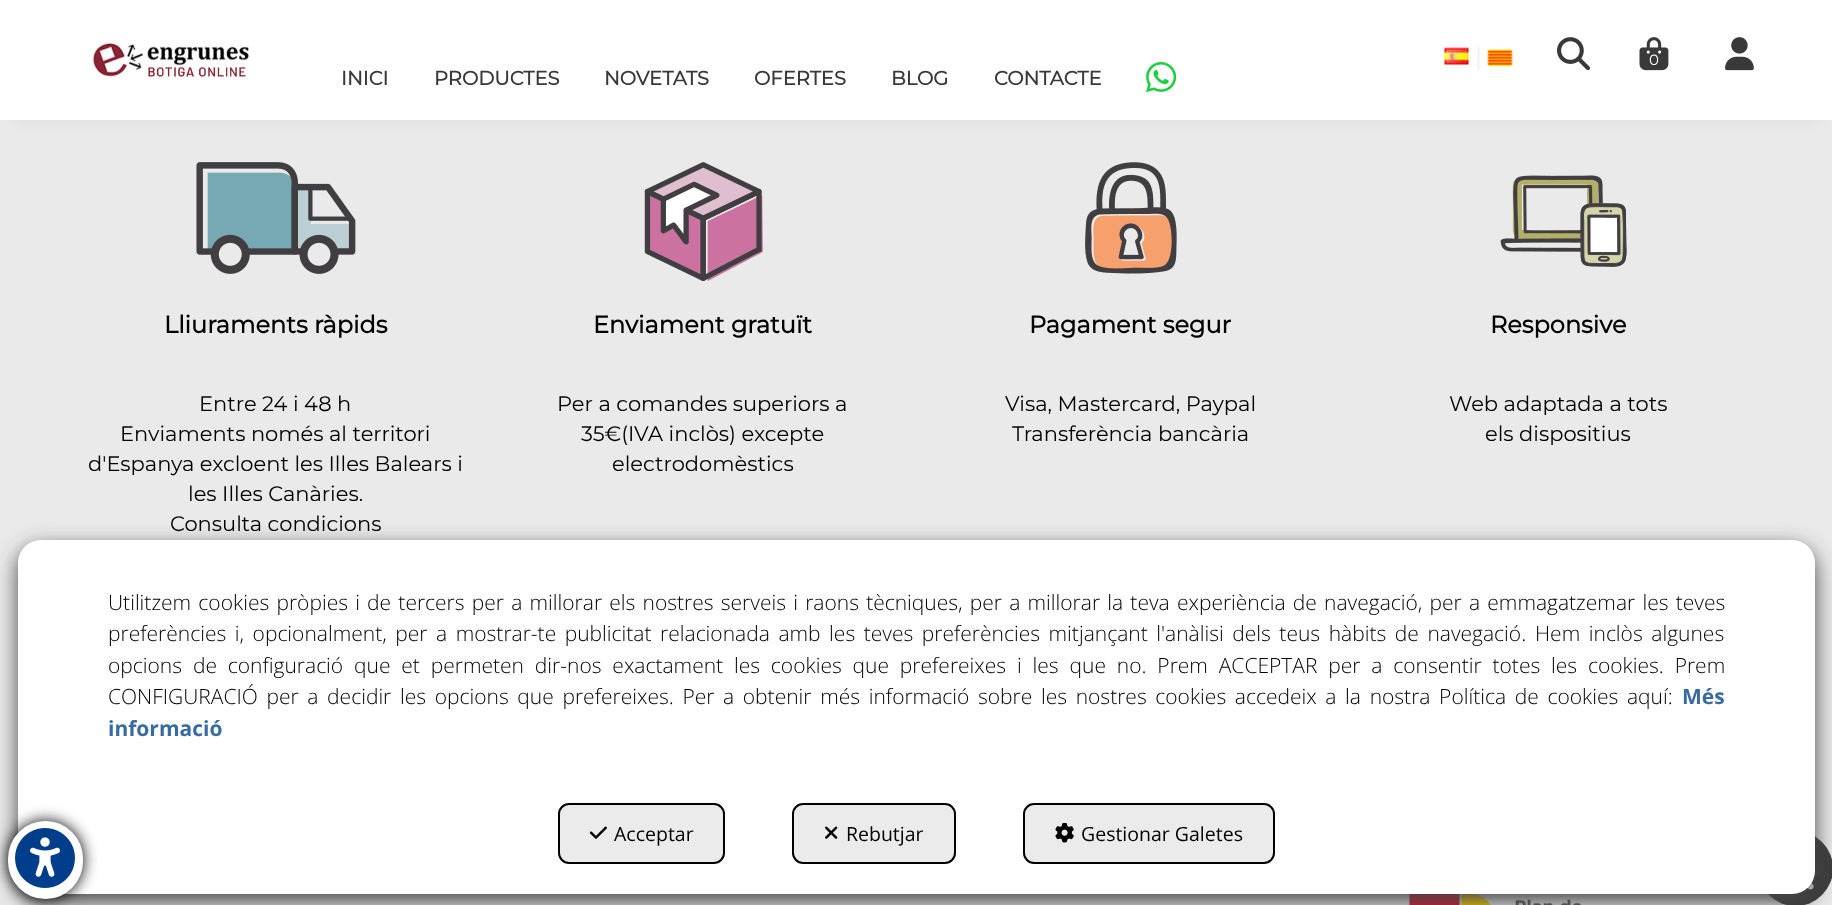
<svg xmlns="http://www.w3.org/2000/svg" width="1832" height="905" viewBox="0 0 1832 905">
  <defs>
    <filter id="blur1" x="-50%" y="-200%" width="200%" height="500%"><feGaussianBlur stdDeviation="7.5"/></filter>
    <filter id="blur2" x="-50%" y="-200%" width="200%" height="500%"><feGaussianBlur stdDeviation="11"/></filter>
  </defs>
  <rect width="100%" height="100%" fill="#eaeaea"/>
  <rect x="14" y="29" width="1806" height="93" fill="#000000" fill-opacity="0.05" filter="url(#blur1)"/>
  <rect x="0" y="0" width="1832" height="120" fill="#ffffff"/>
  <image x="92" y="43" width="157" height="34" href="img1.png"/>
  <image x="1444" y="47" width="25" height="18" href="img2.png"/>
  <text x="1475" y="65" font-family="Montserrat" font-size="24" font-weight="100" fill="#eeeeee">|</text>
  <image x="1487" y="49" width="26" height="18" href="img3.png"/>
  <image x="1557" y="37" width="33" height="34" href="img4.png"/>
  <image x="1639" y="37" width="30" height="34" href="img5.png"/>
  <text x="1649" y="65" font-family="Montserrat" font-size="15" font-weight="100" fill="#ffffff">0</text>
  <image x="1725" y="37" width="29" height="34" href="img6.png"/>
  <text x="341" y="85" font-family="Montserrat" font-size="19.5" font-weight="bold" fill="#393939">INICI</text>
  <text x="434" y="85" font-family="Montserrat" font-size="19.5" font-weight="bold" fill="#393939">PRODUCTES</text>
  <text x="604" y="85" font-family="Montserrat" font-size="19.5" font-weight="bold" fill="#393939">NOVETATS</text>
  <text x="754" y="85" font-family="Montserrat" font-size="19.5" font-weight="bold" fill="#393939">OFERTES</text>
  <text x="891" y="85" font-family="Montserrat" font-size="19.5" font-weight="bold" fill="#393939">BLOG</text>
  <text x="994" y="85" font-family="Montserrat" font-size="19.5" font-weight="bold" fill="#393939">CONTACTE</text>
  <image x="1146" y="62" width="31" height="31" href="img7.png"/>
  <image x="196" y="162" width="160" height="112" href="img8.png"/>
  <text x="164" y="333" font-family="Montserrat" font-size="24" font-weight="bold" fill="#000000">Lliuraments ràpids</text>
  <text x="199" y="411" font-family="Montserrat" font-size="21" font-weight="100" fill="#000000">Entre 24 i 48 h</text>
  <text x="120" y="441" font-family="Montserrat" font-size="21" font-weight="100" fill="#000000">Enviaments només al territori</text>
  <text x="88" y="471" font-family="Montserrat" font-size="21" font-weight="100" fill="#000000">d'Espanya excloent les Illes Balears i</text>
  <text x="188" y="501" font-family="Montserrat" font-size="21" font-weight="100" fill="#000000">les Illes Canàries.</text>
  <text x="170" y="531" font-family="Montserrat" font-size="21" font-weight="100" fill="#000000">Consulta condicions</text>
  <image x="644" y="162" width="119" height="119" href="img9.png"/>
  <text x="593" y="333" font-family="Montserrat" font-size="24" font-weight="bold" fill="#000000">Enviament gratuït</text>
  <text x="557" y="411" font-family="Montserrat" font-size="21" font-weight="100" fill="#000000">Per a comandes superiors a</text>
  <text x="581" y="441" font-family="Montserrat" font-size="21" font-weight="100" fill="#000000">35€(IVA inclòs) excepte</text>
  <text x="612" y="471" font-family="Montserrat" font-size="21" font-weight="100" fill="#000000">electrodomèstics</text>
  <image x="1085" y="162" width="92" height="112" href="img10.png"/>
  <text x="1029" y="333" font-family="Montserrat" font-size="24" font-weight="bold" fill="#000000">Pagament segur</text>
  <text x="1005" y="411" font-family="Montserrat" font-size="21" font-weight="100" fill="#000000">Visa, Mastercard, Paypal</text>
  <text x="1012" y="441" font-family="Montserrat" font-size="21" font-weight="100" fill="#000000">Transferència bancària</text>
  <image x="1500" y="175" width="127" height="92" href="img11.png"/>
  <text x="1490" y="333" font-family="Montserrat" font-size="24" font-weight="bold" fill="#000000">Responsive</text>
  <text x="1449" y="411" font-family="Montserrat" font-size="21" font-weight="100" fill="#000000">Web adaptada a tots</text>
  <text x="1485" y="441" font-family="Montserrat" font-size="21" font-weight="100" fill="#000000">els dispositius</text>
  <image x="1408" y="894" width="174" height="11" href="img12.png"/>
  <circle cx="1795.5" cy="868.5" r="37.5" fill="#3b3b3b"/>
  <image x="1807" y="882" width="7" height="8" href="img17.png"/>
  <rect x="18" y="548" width="1797" height="354" rx="23" fill="#454545" filter="url(#blur2)"/>
  <rect x="18" y="540" width="1797" height="354" rx="23" fill="#ffffff"/>
  <rect x="8" y="821" width="75" height="78" rx="37.5" fill="#000000" filter="url(#blur1)"/>
  <rect x="8" y="821" width="75" height="78" rx="37.5" fill="#ffffff"/>
  <image x="15" y="828" width="60" height="60" href="img13.png"/>
  <text x="108" y="610" word-spacing="1.75" font-family="Open Sans" font-size="21" font-weight="300" fill="#000000">Utilitzem cookies pròpies i de tercers per a millorar els nostres serveis i raons tècniques, per a millorar la teva experiència de navegació, per a emmagatzemar les teves</text>
  <text x="108" y="641" word-spacing="3.1" font-family="Open Sans" font-size="21" font-weight="300" fill="#000000">preferències i, opcionalment, per a mostrar-te publicitat relacionada amb les teves preferències mitjançant l'anàlisi dels teus hàbits de navegació.</text>
  <text x="1535" y="641" word-spacing="3.1" font-family="Open Sans" font-size="21" font-weight="300" fill="#000000">Hem inclòs algunes</text>
  <text x="108" y="673" word-spacing="5.4" font-family="Open Sans" font-size="21" font-weight="300" fill="#000000">opcions de configuració que et permeten dir-nos exactament les cookies que prefereixes i les que no. Prem ACCEPTAR per a consentir totes les cookies. Prem</text>
  <text x="108" y="704" word-spacing="3.2" font-family="Open Sans" font-size="21" font-weight="300" fill="#000000">CONFIGURACIÓ per a decidir les opcions que prefereixes. Per a obtenir més informació sobre les nostres cookies accedeix a la nostra Política de cookies aquí:</text>
  <text x="1682" y="704" font-family="Open Sans" font-size="21" font-weight="bold" fill="#376ba3">Més</text>
  <text x="108" y="736" font-family="Open Sans" font-size="21" font-weight="bold" fill="#376ba3">informació</text>
  <rect x="559" y="804" width="165" height="59" rx="10" fill="#ebebeb" stroke="#000000" stroke-width="2"/>
  <image x="589" y="826" width="18" height="13" href="img14.png"/>
  <text x="614" y="841" font-family="Open Sans" font-size="19.5" fill="#000000">Acceptar</text>
  <rect x="793" y="804" width="162" height="59" rx="10" fill="#ebebeb" stroke="#000000" stroke-width="2"/>
  <image x="825" y="826" width="13" height="13" href="img15.png"/>
  <text x="846" y="841" font-family="Open Sans" font-size="19.5" fill="#000000">Rebutjar</text>
  <rect x="1024" y="804" width="250" height="59" rx="10" fill="#ebebeb" stroke="#000000" stroke-width="2"/>
  <image x="1055" y="822" width="19" height="21" href="img16.png"/>
  <text x="1081" y="841" font-family="Open Sans" font-size="19.5" fill="#000000">Gestionar Galetes</text>
</svg>
